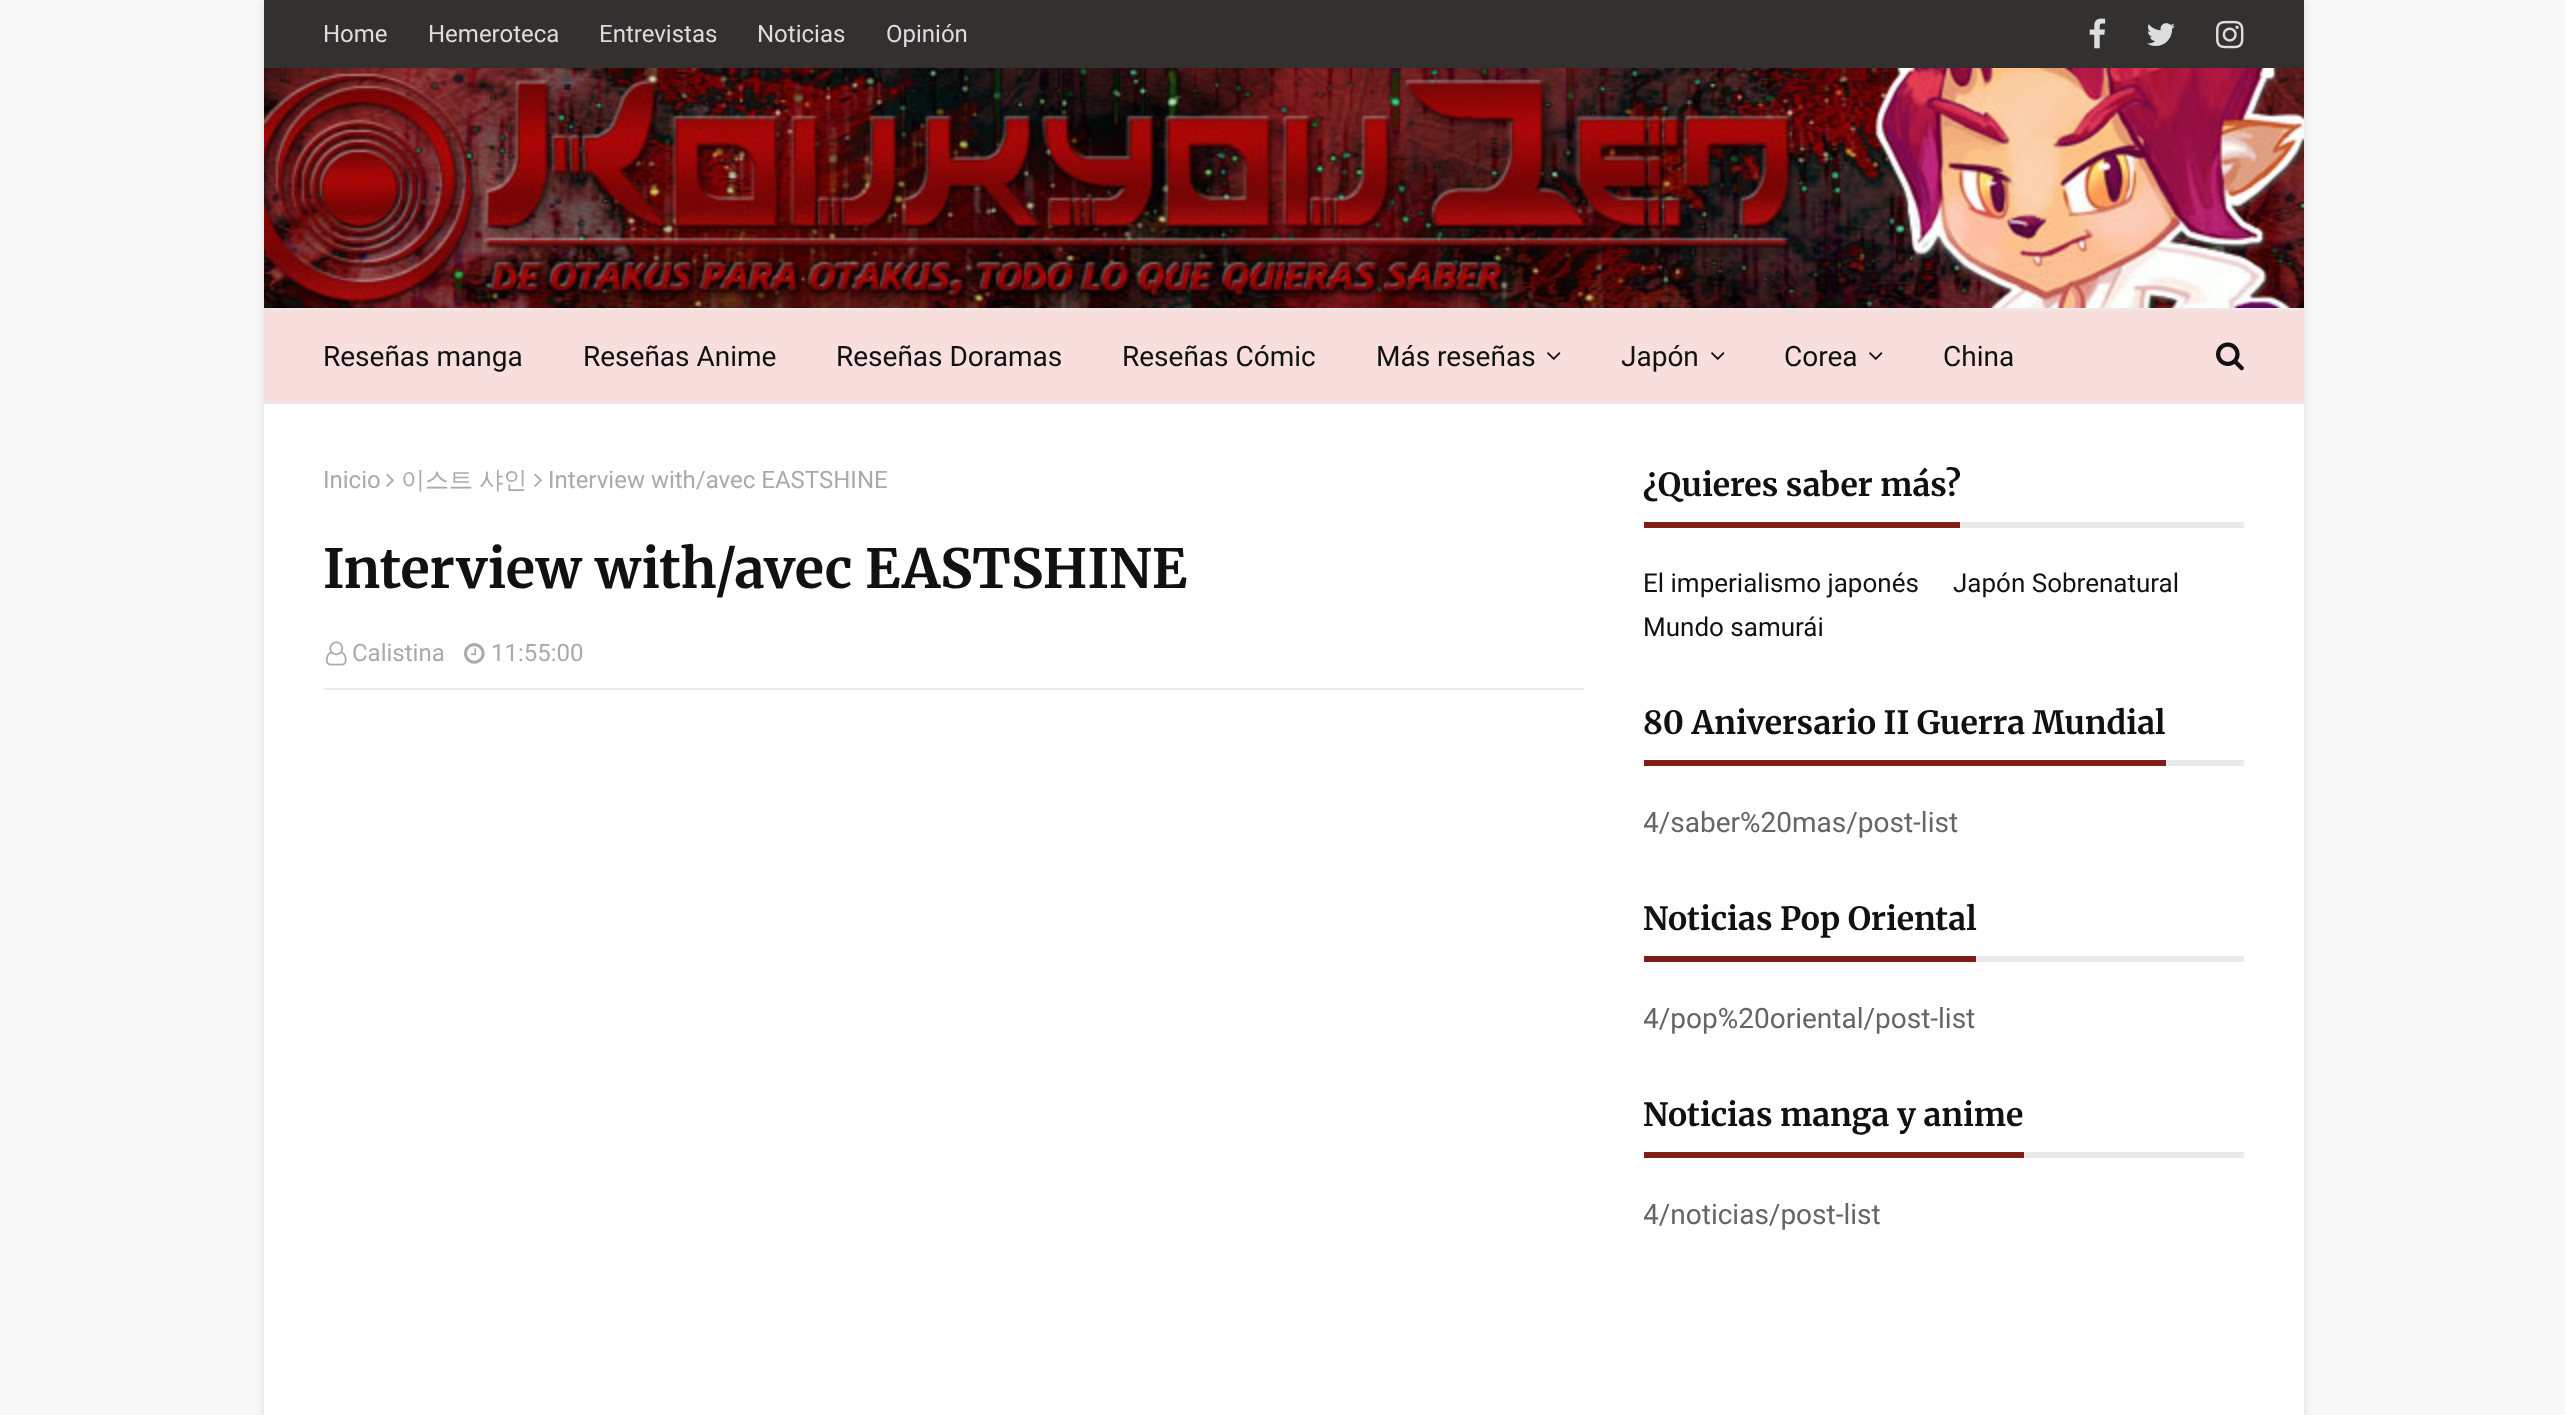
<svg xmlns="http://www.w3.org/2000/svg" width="2565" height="1415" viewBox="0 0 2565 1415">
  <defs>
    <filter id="blur1" x="-50%" y="-200%" width="200%" height="500%"><feGaussianBlur stdDeviation="5"/></filter>
    <clipPath id="clip1"><rect x="1644" y="702" width="600" height="136"/></clipPath>
    <clipPath id="clip2"><rect x="1644" y="898" width="600" height="136"/></clipPath>
    <clipPath id="clip3"><rect x="1644" y="1094" width="600" height="136"/></clipPath>
  </defs>
  <rect width="100%" height="100%" fill="#f8f8f8"/>
  <rect x="264" y="0" width="2040" height="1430" fill="#000000" fill-opacity="0.1" filter="url(#blur1)"/>
  <rect x="264" y="404" width="2040" height="1011" fill="#ffffff"/>
  <rect x="264" y="0" width="2040" height="68" fill="#333030"/>
  <text x="323" y="42" font-family="Roboto" font-size="24" fill="#dddddd">Home</text>
  <text x="428" y="42" font-family="Roboto" font-size="24" fill="#dddddd">Hemeroteca</text>
  <text x="599" y="42" font-family="Roboto" font-size="24" fill="#dddddd">Entrevistas</text>
  <text x="757" y="42" font-family="Roboto" font-size="24" fill="#dddddd">Noticias</text>
  <text x="886" y="42" font-family="Roboto" font-size="24" fill="#dddddd">Opinión</text>
  <image x="2089" y="18" width="17" height="31" href="img1.png"/>
  <image x="2147" y="23" width="28" height="23" href="img2.png"/>
  <image x="2216" y="20" width="28" height="29" href="img3.png"/>
  <image x="264" y="68" width="2040" height="240" href="img4.png"/>
  <rect x="264" y="310" width="2040" height="92" fill="#f9dede"/>
  <rect x="264" y="308" width="2040" height="2" fill="#eaeaea"/>
  <rect x="264" y="402" width="2040" height="2" fill="#eaeaea"/>
  <text x="323" y="366" font-family="Roboto" font-size="28" fill="#111111">Reseñas manga</text>
  <text x="583" y="366" font-family="Roboto" font-size="28" fill="#111111">Reseñas Anime</text>
  <text x="836" y="366" font-family="Roboto" font-size="28" fill="#111111">Reseñas Doramas</text>
  <text x="1122" y="366" font-family="Roboto" font-size="28" fill="#111111">Reseñas Cómic</text>
  <text x="1376" y="366" font-family="Roboto" font-size="28" fill="#111111">Más reseñas</text>
  <image x="1547" y="352" width="14" height="8" href="img5.png"/>
  <text x="1621" y="366" font-family="Roboto" font-size="28" fill="#111111">Japón</text>
  <image x="1711" y="352" width="14" height="8" href="img5.png"/>
  <text x="1784" y="366" font-family="Roboto" font-size="28" fill="#111111">Corea</text>
  <image x="1869" y="352" width="14" height="8" href="img5.png"/>
  <text x="1943" y="366" font-family="Roboto" font-size="28" fill="#111111">China</text>
  <image x="2216" y="342" width="28" height="29" href="img6.png"/>
  <text x="323" y="488" font-family="Roboto" font-size="24" fill="#aaaaaa">Inicio</text>
  <image x="386" y="473" width="8" height="14" href="img7.png"/>
  <text x="401" y="488" word-spacing="-1" font-family="WenQuanYi Zen Hei" font-size="24" font-weight="500" fill="#aaaaaa">이스트 샤인</text>
  <image x="534" y="473" width="8" height="14" href="img7.png"/>
  <text x="548" y="488" font-family="Roboto" font-size="24" fill="#aaaaaa">Interview with/avec EASTSHINE</text>
  <text x="323" y="588" font-family="Merriweather" font-size="54" font-weight="bold" fill="#111111">Interview with/avec EASTSHINE</text>
  <rect x="324" y="688" width="1260" height="2" fill="#eaeaea"/>
  <image x="326" y="641" width="21" height="25" href="img8.png"/>
  <text x="352" y="661" font-family="Roboto" font-size="24" fill="#aaaaaa">Calistina</text>
  <image x="464" y="643" width="21" height="21" href="img9.png"/>
  <text x="491" y="661" font-family="Roboto" font-size="24" fill="#aaaaaa">11:55:00</text>
  <rect x="1960" y="522" width="284" height="6" fill="#eaeaea"/>
  <text x="1643" y="496" font-family="Merriweather" font-size="32" font-weight="bold" fill="#111111">¿Quieres saber más?</text>
  <rect x="1644" y="522" width="316" height="6" fill="#7f1d18"/>
  <text x="1643" y="592" font-family="Roboto" font-size="26" fill="#111111">El imperialismo japonés</text>
  <text x="1953" y="592" font-family="Roboto" font-size="26" fill="#111111">Japón Sobrenatural</text>
  <text x="1643" y="636" font-family="Roboto" font-size="26" fill="#111111">Mundo samurái</text>
  <rect x="2166" y="760" width="78" height="6" fill="#eaeaea"/>
  <text x="1643" y="734" font-family="Merriweather" font-size="32" font-weight="bold" fill="#111111">80 Aniversario II Guerra Mundial</text>
  <rect x="1644" y="760" width="522" height="6" fill="#7f1d18"/>
  <g clip-path="url(#clip1)">
    <text x="1643" y="832" font-family="Roboto" font-size="28" fill="#656565">4/saber%20mas/post-list</text>
  </g>
  <rect x="1976" y="956" width="268" height="6" fill="#eaeaea"/>
  <text x="1643" y="930" font-family="Merriweather" font-size="32" font-weight="bold" fill="#111111">Noticias Pop Oriental</text>
  <rect x="1644" y="956" width="332" height="6" fill="#7f1d18"/>
  <g clip-path="url(#clip2)">
    <text x="1643" y="1028" font-family="Roboto" font-size="28" fill="#656565">4/pop%20oriental/post-list</text>
  </g>
  <rect x="2024" y="1152" width="220" height="6" fill="#eaeaea"/>
  <text x="1643" y="1126" font-family="Merriweather" font-size="32" font-weight="bold" fill="#111111">Noticias manga y anime</text>
  <rect x="1644" y="1152" width="380" height="6" fill="#7f1d18"/>
  <g clip-path="url(#clip3)">
    <text x="1643" y="1224" font-family="Roboto" font-size="28" fill="#656565">4/noticias/post-list</text>
  </g>
</svg>
